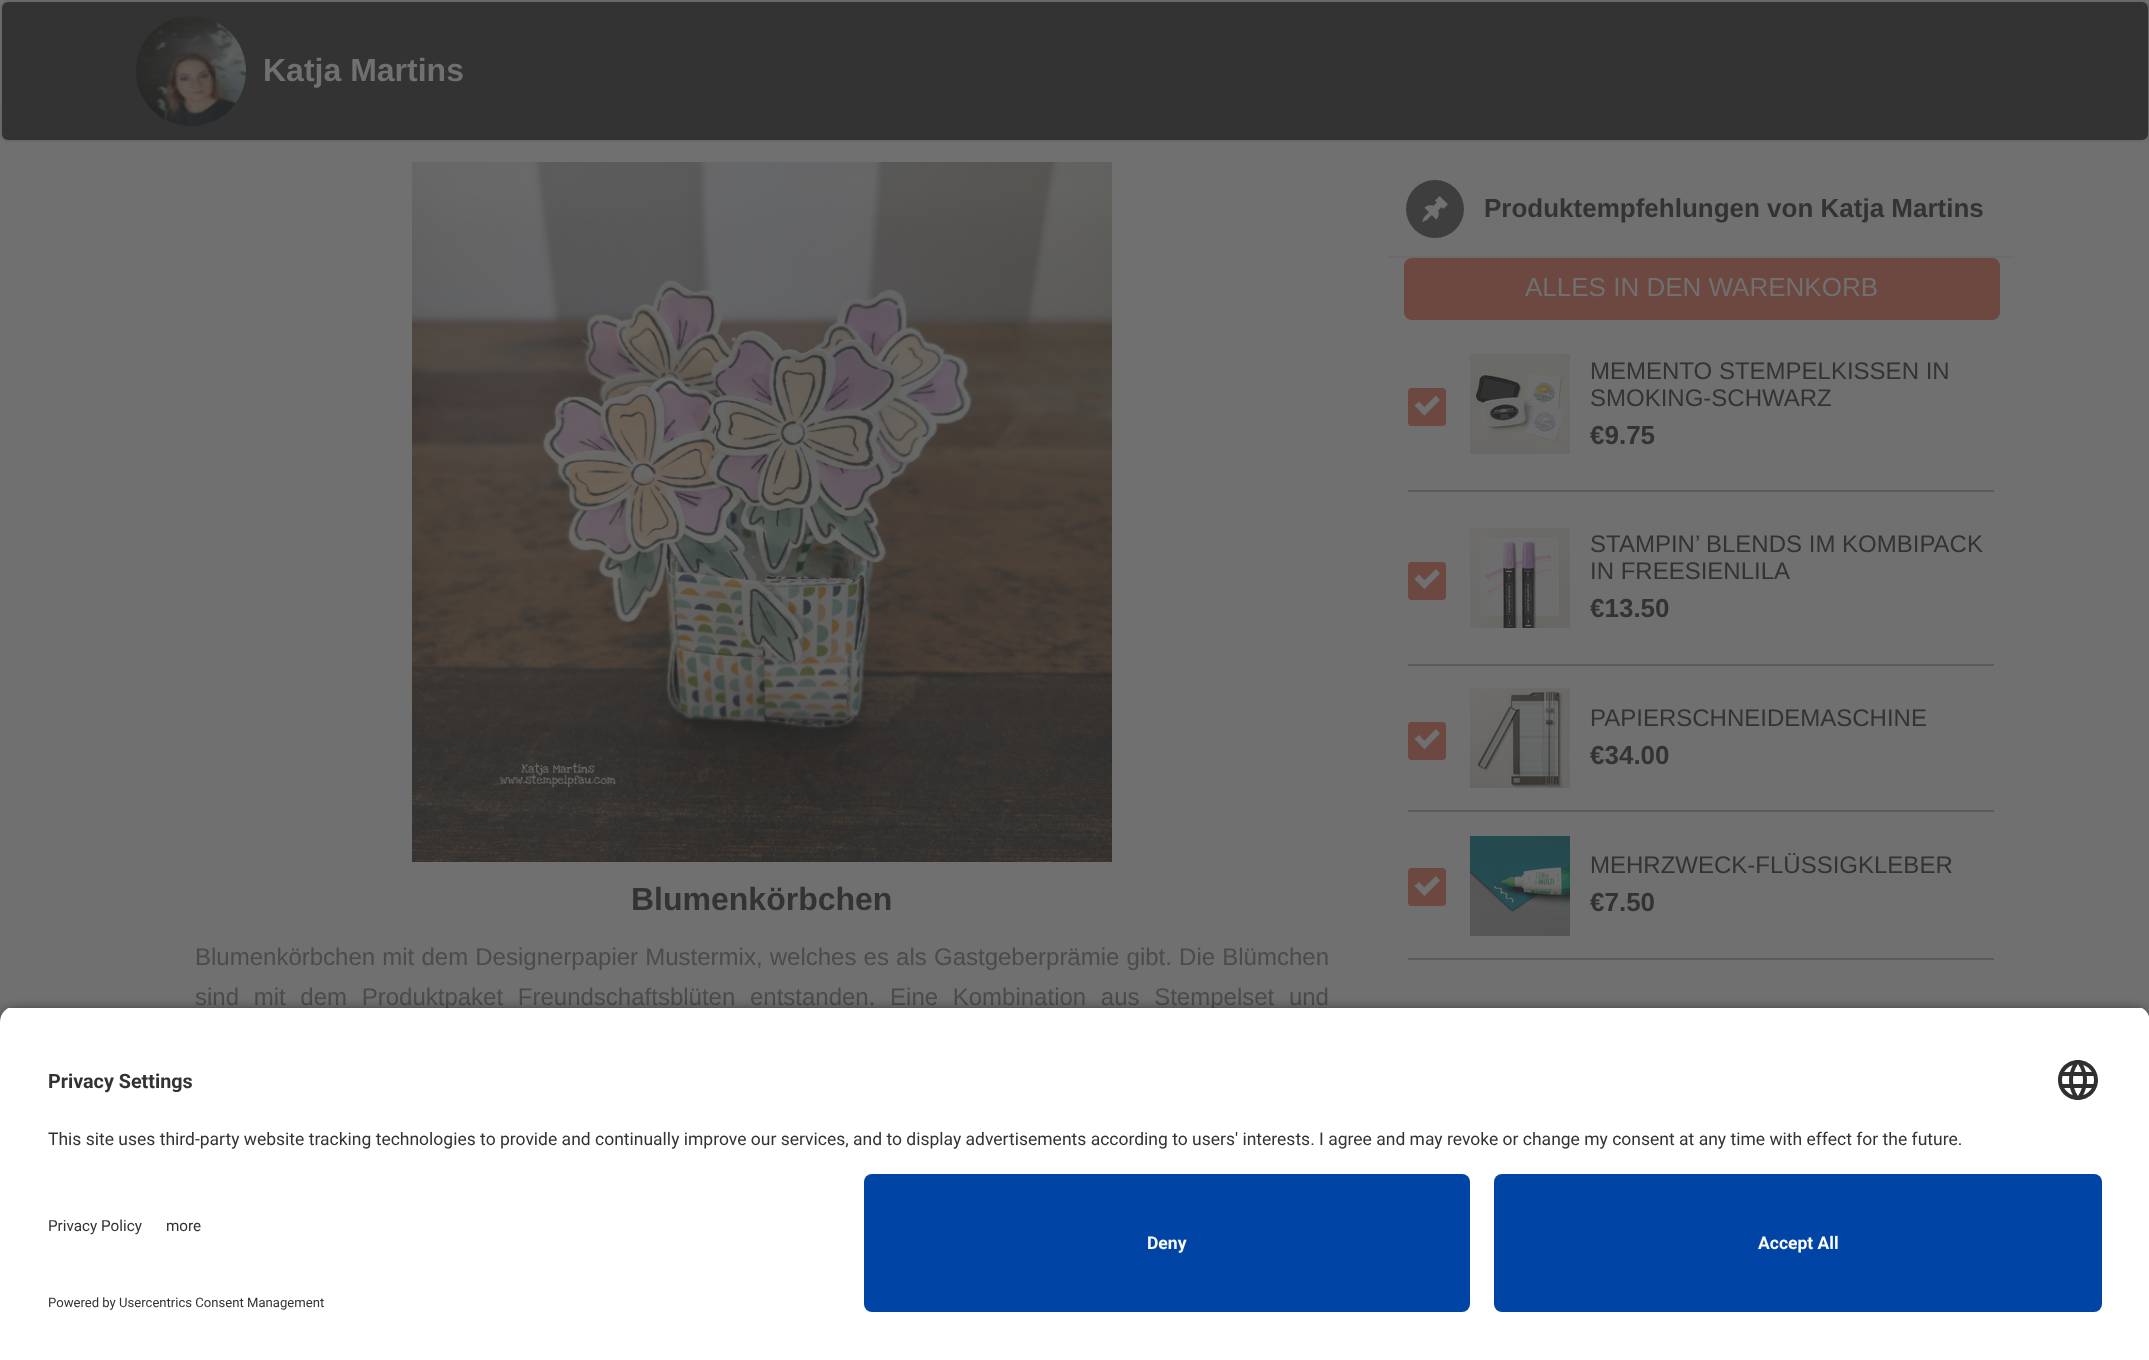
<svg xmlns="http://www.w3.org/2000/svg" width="2149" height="1360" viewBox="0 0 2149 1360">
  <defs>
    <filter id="blur1" x="-50%" y="-200%" width="200%" height="500%"><feGaussianBlur stdDeviation="7"/></filter>
    <clipPath id="clip1"><path d="M16 1006H2134C2143 1006 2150 1013 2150 1022V1158H0V1022C0 1013 7 1006 16 1006Z"/></clipPath>
  </defs>
  <rect width="100%" height="100%" fill="#707070"/>
  <rect x="1" y="1" width="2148" height="140" rx="7" fill="#333333" stroke="#696969" stroke-width="2"/>
  <image x="136" y="16" width="110" height="110" href="img1.png"/>
  <text x="263" y="81" font-family="Liberation Sans" font-size="32" font-weight="bold" fill="#707070">Katja Martins</text>
  <rect x="1388" y="256" width="626" height="2" fill="#6b6b6b"/>
  <circle cx="1435" cy="209" r="29" fill="#3e3e3e"/>
  <image x="1422" y="196" width="26" height="26" href="img2.png"/>
  <text x="1484" y="217" font-family="Liberation Sans" font-size="26" font-weight="bold" fill="#333333">Produktempfehlungen von Katja Martins</text>
  <rect x="1404" y="258" width="596" height="62" rx="8" fill="#6d4841"/>
  <text x="1525" y="296" font-family="Liberation Sans" font-size="26" fill="#707070">ALLES IN DEN WARENKORB</text>
  <rect x="1408" y="490" width="586" height="2" fill="#5c5b5a"/>
  <rect x="1408" y="388" width="38" height="38" rx="4" fill="#6d4841"/>
  <path d="M1436 395.5L1440 400L1424.5 415.5L1420 411.5Z" fill="#707070"/>
  <path d="M1419 401.5L1428.5 411.5L1424.5 415.5L1414.5 405.5Z" fill="#707070"/>
  <image x="1470" y="354" width="100" height="100" href="img3.png"/>
  <text x="1590" y="379" font-family="Liberation Sans" font-size="24" fill="#333333">MEMENTO STEMPELKISSEN IN</text>
  <text x="1590" y="406" font-family="Liberation Sans" font-size="24" fill="#333333">SMOKING-SCHWARZ</text>
  <text x="1590" y="444" font-family="Liberation Sans" font-size="26" font-weight="bold" fill="#333333">€9.75</text>
  <rect x="1408" y="664" width="586" height="2" fill="#5c5b5a"/>
  <rect x="1408" y="562" width="38" height="38" rx="4" fill="#6d4841"/>
  <path d="M1436 569L1440 573.5L1424.5 589L1420 584.5Z" fill="#707070"/>
  <path d="M1419 574.5L1428.5 584.5L1424.5 589L1414.5 579Z" fill="#707070"/>
  <image x="1470" y="528" width="100" height="100" href="img4.png"/>
  <text x="1590" y="552" font-family="Liberation Sans" font-size="24" fill="#333333">STAMPIN’ BLENDS IM KOMBIPACK</text>
  <text x="1590" y="579" font-family="Liberation Sans" font-size="24" fill="#333333">IN FREESIENLILA</text>
  <text x="1590" y="617" font-family="Liberation Sans" font-size="26" font-weight="bold" fill="#333333">€13.50</text>
  <rect x="1408" y="810" width="586" height="2" fill="#5c5b5a"/>
  <rect x="1408" y="722" width="38" height="38" rx="4" fill="#6d4841"/>
  <path d="M1436 729L1440 733.5L1424.5 749L1420 745Z" fill="#707070"/>
  <path d="M1419 735L1428.5 745L1424.5 749L1414.5 739Z" fill="#707070"/>
  <image x="1470" y="688" width="100" height="100" href="img5.png"/>
  <text x="1590" y="726" font-family="Liberation Sans" font-size="24" fill="#333333">PAPIERSCHNEIDEMASCHINE</text>
  <text x="1590" y="764" font-family="Liberation Sans" font-size="26" font-weight="bold" fill="#333333">€34.00</text>
  <rect x="1408" y="958" width="586" height="2" fill="#5c5b5a"/>
  <rect x="1408" y="868" width="38" height="38" rx="4" fill="#6d4841"/>
  <path d="M1436 876L1440 880.5L1424.5 896L1420 891.5Z" fill="#707070"/>
  <path d="M1419 882L1428.5 891.5L1424.5 896L1414.5 886Z" fill="#707070"/>
  <image x="1470" y="836" width="100" height="100" href="img6.png"/>
  <text x="1590" y="873" font-family="Liberation Sans" font-size="24" fill="#333333">MEHRZWECK-FLÜSSIGKLEBER</text>
  <text x="1590" y="911" font-family="Liberation Sans" font-size="26" font-weight="bold" fill="#333333">€7.50</text>
  <image x="412" y="162" width="700" height="700" href="img7.png"/>
  <text x="631" y="910" font-family="Liberation Sans" font-size="32" font-weight="bold" fill="#333333">Blumenkörbchen</text>
  <text x="195" y="965" word-spacing="0.5" font-family="Liberation Sans" font-size="24" fill="#4b4b4b">Blumenkörbchen mit dem Designerpapier Mustermix, welches es als Gastgeberprämie gibt. Die Blümchen</text>
  <text x="195" y="1005" word-spacing="8" font-family="Liberation Sans" font-size="24" fill="#4b4b4b">sind mit dem Produktpaket Freundschaftsblüten entstanden. Eine Kombination aus Stempelset und</text>
  <rect x="0" y="1012" width="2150" height="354" rx="16" fill="#000000" fill-opacity="0.8" filter="url(#blur1)"/>
  <g clip-path="url(#clip1)">
    <rect x="0" y="1008" width="2149" height="150" fill="#ffffff"/>
  </g>
  <text x="48" y="1088" font-family="Roboto" font-size="19.75" font-weight="bold" fill="#333333">Privacy Settings</text>
  <image x="2058" y="1060" width="40" height="40" href="img8.png"/>
  <text x="48" y="1145" font-family="Roboto" font-size="17.5" fill="#333333">This site uses third-party website tracking technologies to provide and continually improve our services, and to display advertisements according to users' interests. I agree and may revoke or change my consent at any time with effect for the future.</text>
  <rect x="0" y="1158" width="2149" height="202" fill="#ffffff"/>
  <text x="48" y="1231" font-family="Roboto" font-size="15.25" fill="#333333">Privacy Policy</text>
  <text x="166" y="1231" font-family="Roboto" font-size="15.25" fill="#333333">more</text>
  <text x="48" y="1307" font-family="Roboto" font-size="13.1" fill="#333333">Powered by Usercentrics Consent Management</text>
  <rect x="864" y="1174" width="606" height="138" rx="8" fill="#0045a5"/>
  <text x="1147" y="1249" font-family="Roboto" font-size="17.5" font-weight="bold" fill="#fafafa">Deny</text>
  <rect x="1494" y="1174" width="608" height="138" rx="8" fill="#0045a5"/>
  <text x="1758" y="1249" font-family="Roboto" font-size="17.5" font-weight="bold" fill="#fafafa">Accept All</text>
</svg>
